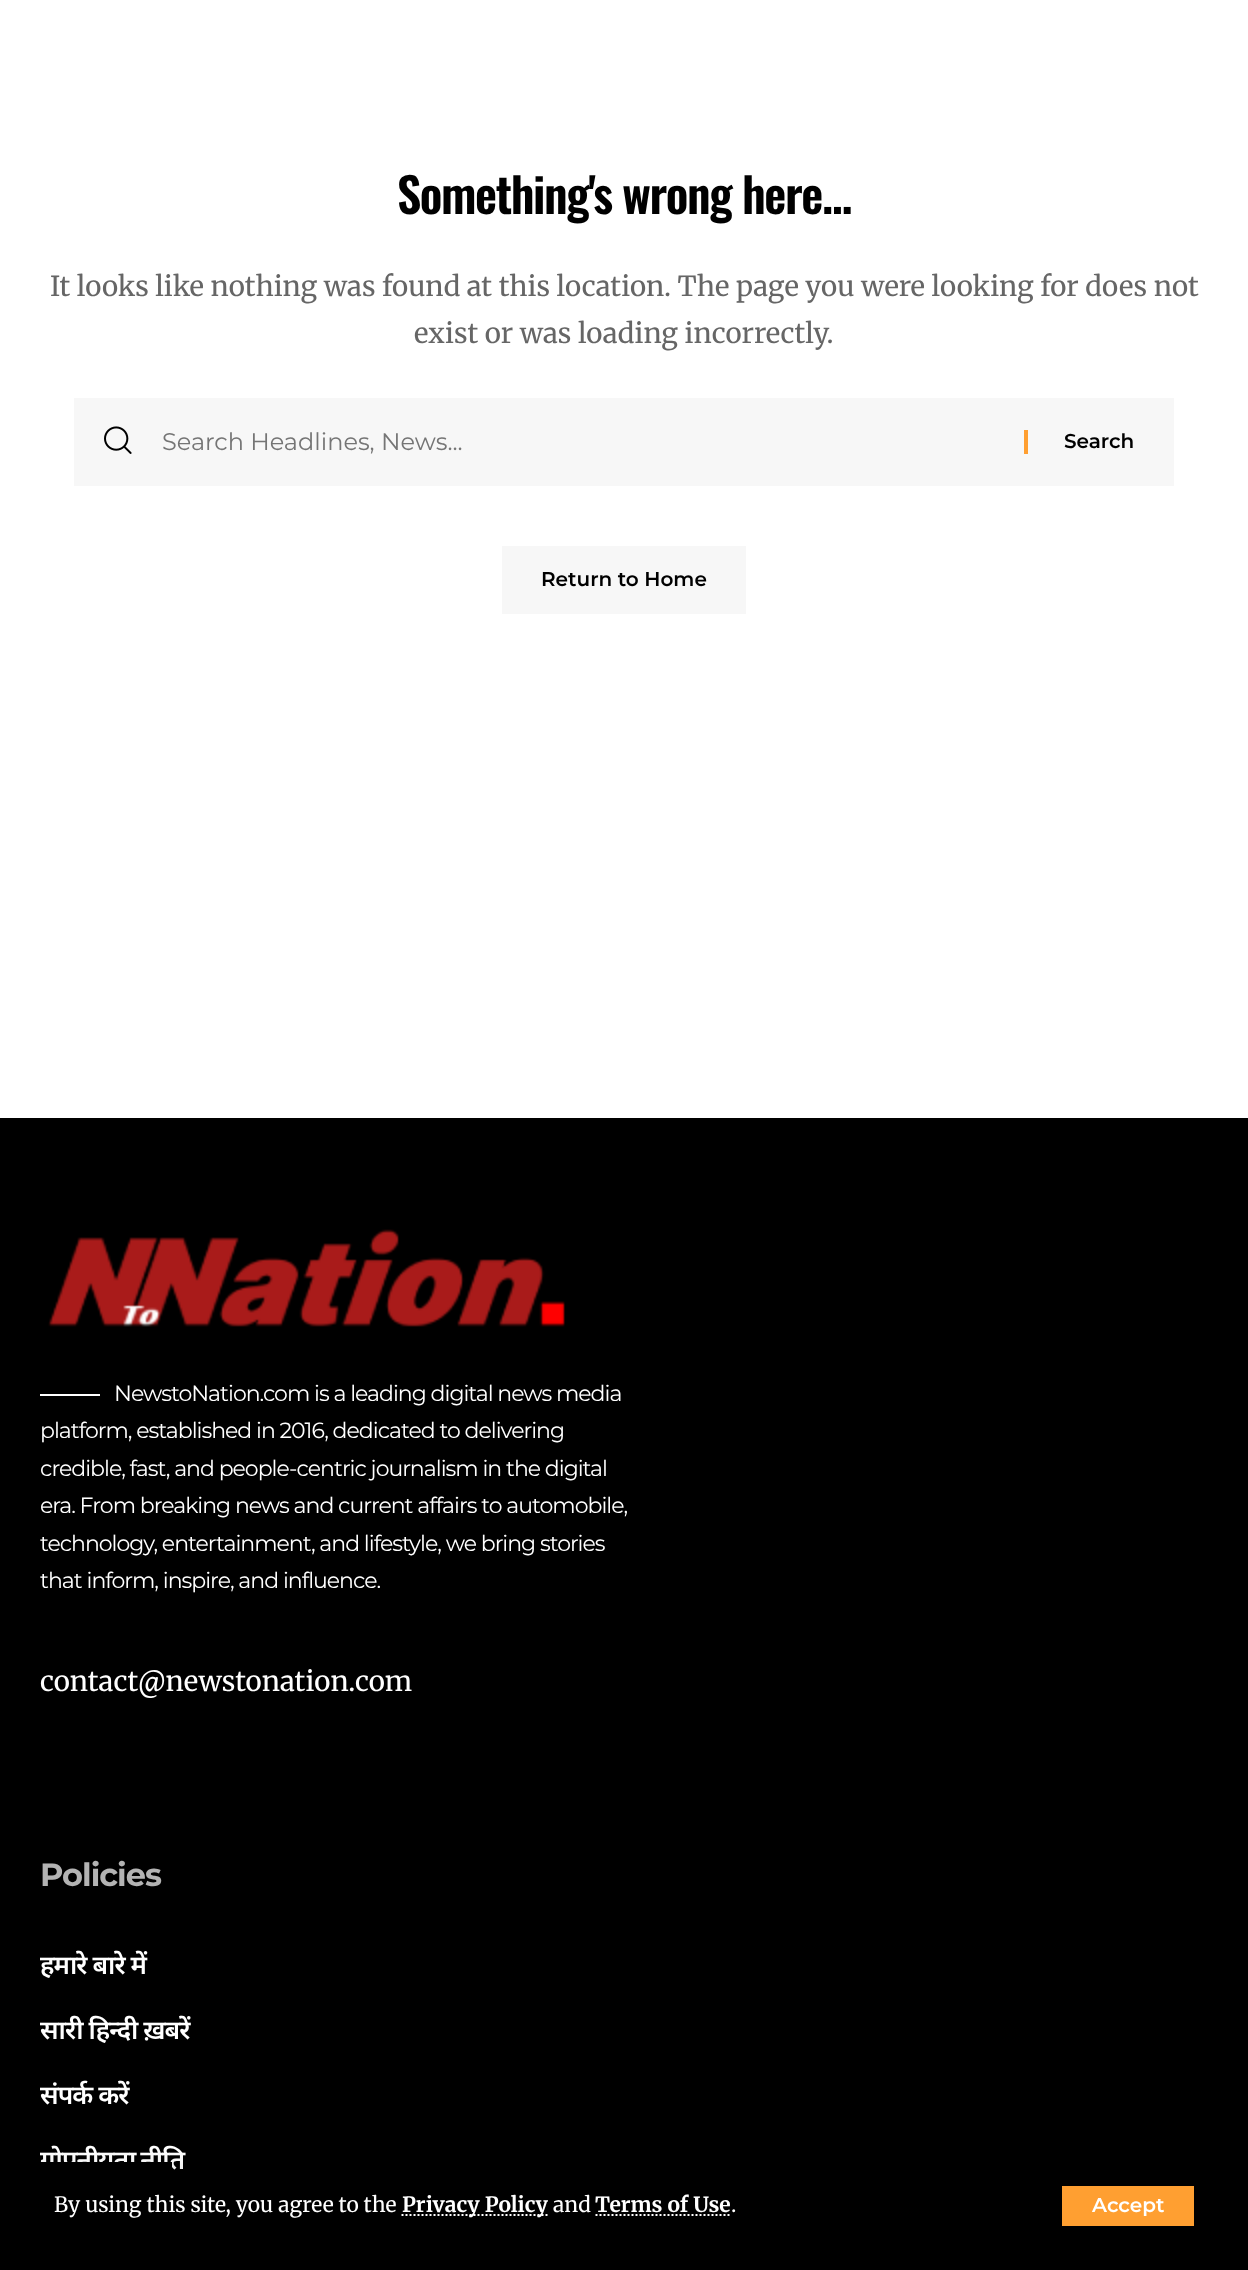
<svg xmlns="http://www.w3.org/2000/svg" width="1248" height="2270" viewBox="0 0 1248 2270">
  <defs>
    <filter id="blur1" x="-50%" y="-200%" width="200%" height="500%"><feGaussianBlur stdDeviation="12"/></filter>
  </defs>
  <rect width="100%" height="100%" fill="#ffffff"/>
  <text x="397" y="214" font-family="Oswald" font-size="48" font-weight="600" letter-spacing="-1.4" fill="#000000">Something's wrong here...</text>
  <text x="50" y="296" font-family="Merriweather" font-size="27.6" fill="#666666">It looks like nothing was found at this location. The page you were looking for does not</text>
  <text x="414" y="343" font-family="Merriweather" font-size="27.6" fill="#666666">exist or was loading incorrectly.</text>
  <rect x="74" y="398" width="1100" height="88" fill="#f7f7f7"/>
  <image x="104" y="426" width="28" height="28" href="img1.png"/>
  <text x="162" y="450" font-family="Montserrat" font-size="24" fill="#757575">Search Headlines, News...</text>
  <rect x="1024" y="430" width="4" height="24" fill="#ff9f31"/>
  <text x="1064" y="448" font-family="Montserrat" font-size="20" font-weight="600" fill="#000000">Search</text>
  <rect x="502" y="546" width="244" height="68" fill="#f7f7f7"/>
  <text x="541" y="586" font-family="Montserrat" font-size="20" font-weight="600" fill="#000000">Return to Home</text>
  <rect x="0" y="1118" width="1248" height="1152" fill="#000000"/>
  <image x="48" y="1229" width="517" height="98" href="img2.png"/>
  <rect x="40" y="1394" width="60" height="2" fill="#ffffff"/>
  <text x="114" y="1401" font-family="Montserrat" font-size="22" letter-spacing="-1" fill="#ffffff">NewstoNation.com is a leading digital news media</text>
  <text x="40" y="1438" font-family="Montserrat" font-size="22" letter-spacing="-1" fill="#ffffff">platform, established in 2016, dedicated to delivering</text>
  <text x="40" y="1476" font-family="Montserrat" font-size="22" letter-spacing="-1" fill="#ffffff">credible, fast, and people-centric journalism in the digital</text>
  <text x="40" y="1513" font-family="Montserrat" font-size="22" letter-spacing="-1" fill="#ffffff">era. From breaking news and current affairs to automobile,</text>
  <text x="40" y="1551" font-family="Montserrat" font-size="22" letter-spacing="-1" fill="#ffffff">technology, entertainment, and lifestyle, we bring stories</text>
  <text x="40" y="1588" font-family="Montserrat" font-size="22" letter-spacing="-1" fill="#ffffff">that inform, inspire, and influence.</text>
  <text x="40" y="1691" font-family="Merriweather" font-size="27.6" fill="#ffffff">contact@newstonation.com</text>
  <text x="40" y="1886" font-family="Montserrat" font-size="32" font-weight="bold" letter-spacing="-1" fill="#b3b3b3">Policies</text>
  <text x="40" y="1974" font-family="Noto Sans" font-size="26" font-weight="600" letter-spacing="-0.9" fill="#ffffff">हमारे बारे में</text>
  <text x="40" y="2039" font-family="Noto Sans" font-size="26" font-weight="600" letter-spacing="-0.9" fill="#ffffff">सारी हिन्दी ख़बरें</text>
  <text x="40" y="2104" font-family="Noto Sans" font-size="26" font-weight="600" letter-spacing="-0.9" fill="#ffffff">संपर्क करें</text>
  <text x="40" y="2169" word-spacing="-1" font-family="Noto Sans" font-size="26" font-weight="600" letter-spacing="-0.9" fill="#ffffff">गोपनीयता नीति</text>
  <rect x="30" y="2168" width="1188" height="88" fill="#000000" fill-opacity="0.12" filter="url(#blur1)"/>
  <rect x="41" y="2162" width="131" height="8" fill="#000000"/>
  <text x="54" y="2212" font-family="Merriweather" font-size="21" fill="#ffffff">By using this site, you agree to the</text>
  <path d="M401.5 2215H547.5" fill="none" stroke="#ffffff" stroke-width="2" stroke-dasharray="2 2"/>
  <text x="402" y="2212" font-family="Merriweather" font-size="21" font-weight="bold" fill="#ffffff">Privacy Policy</text>
  <text x="553" y="2212" font-family="Merriweather" font-size="21" fill="#ffffff">and</text>
  <text x="595" y="2212" font-family="Merriweather" font-size="21" font-weight="bold" fill="#ffffff">Terms of Use</text>
  <path d="M595.5 2215H731" fill="none" stroke="#ffffff" stroke-width="2" stroke-dasharray="2 2"/>
  <text x="731" y="2212" font-family="Merriweather" font-size="21" fill="#ffffff">.</text>
  <rect x="1062" y="2186" width="132" height="40" fill="#ff9f31"/>
  <text x="1092" y="2212" font-family="Montserrat" font-size="20" font-weight="600" fill="#ffffff">Accept</text>
</svg>
